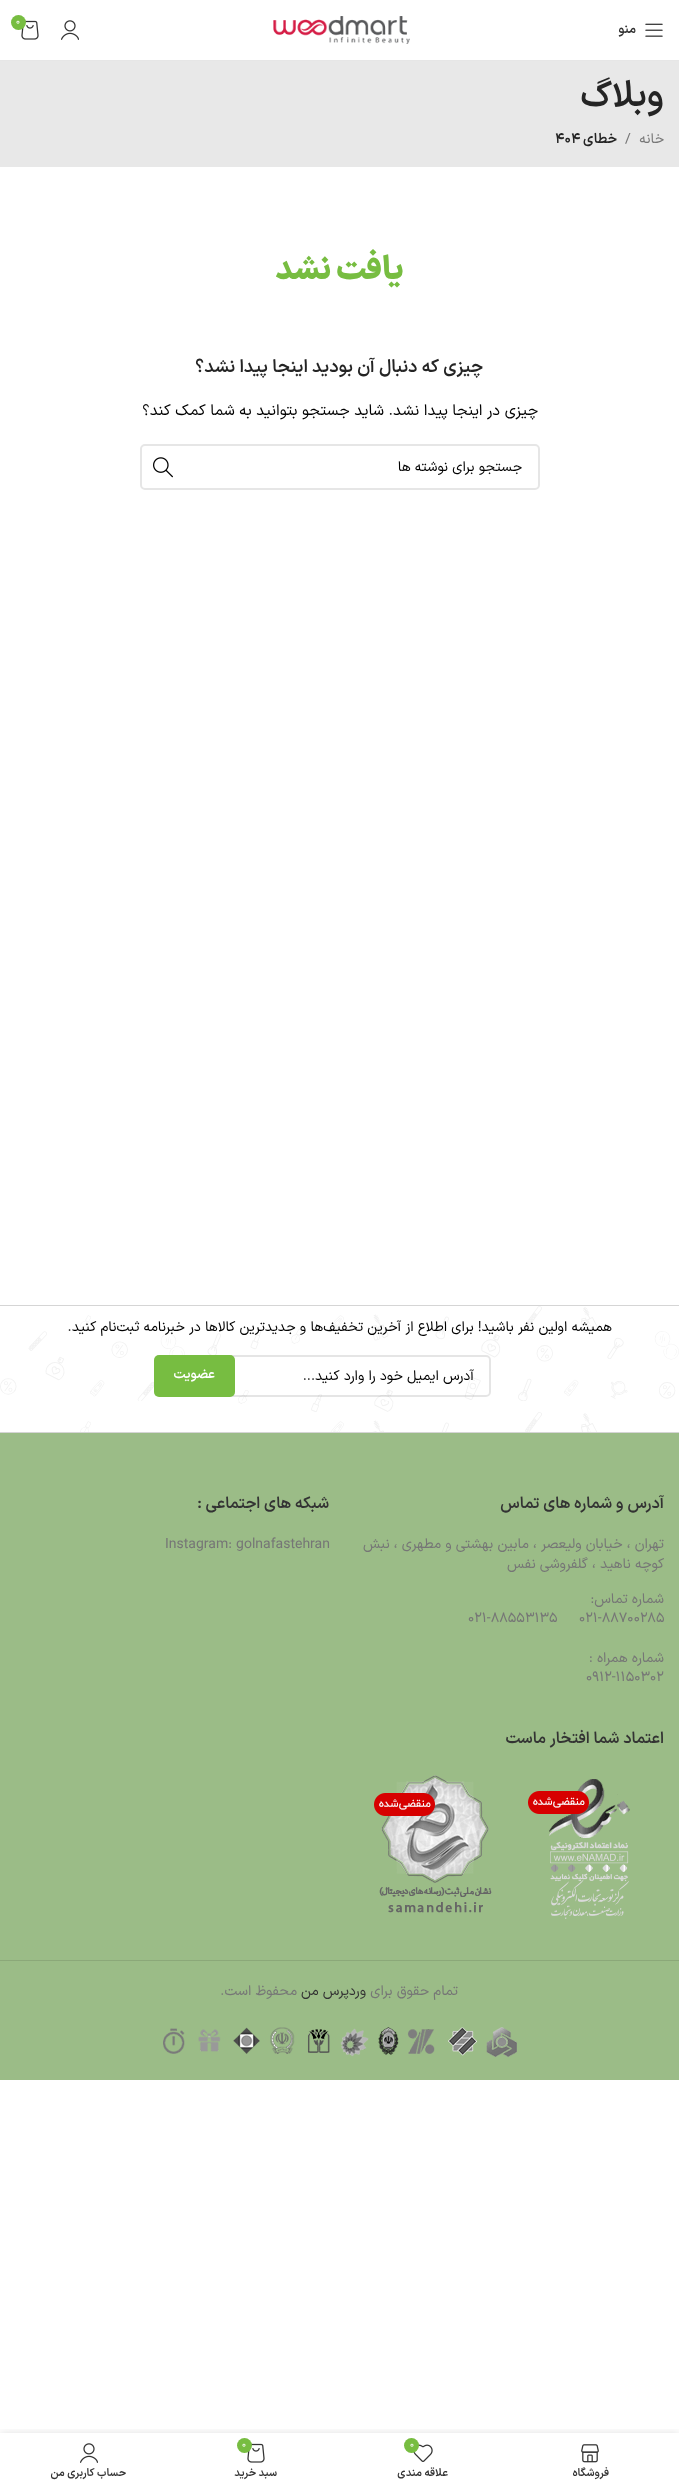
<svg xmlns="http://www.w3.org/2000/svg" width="679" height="2488">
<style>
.a{font:9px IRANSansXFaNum;fill:#fff}
.b{font:600 13px IRANSansXFaNum;direction:rtl;fill:#333}
.c{font:600 36px IRANSansXFaNum;direction:rtl;fill:#242424}
.d{font:14px IRANSansXFaNum;direction:rtl;fill:#767676}
.e{font:14px IRANSansXFaNum;fill:#767676}
.f{font:600 14px IRANSansXFaNum;direction:rtl;fill:#242424}
.g{font:600 14px IRANSansXFaNum;fill:#242424}
.h{font:900 32px IRANSansXFaNum;direction:rtl;fill:#77bd41}
.i{font:600 18px IRANSansXFaNum;direction:rtl;fill:#242424}
.j{font:15.4px IRANSansXFaNum;direction:rtl;fill:#000}
.k{font:14px IRANSansXFaNum;direction:rtl;fill:#000}
.l{font:600 13px IRANSansXFaNum;direction:rtl;fill:#fff}
.m{font:600 16px IRANSansXFaNum;direction:rtl;fill:#333}
.n{font:14px IRANSansXFaNum;direction:rtl;fill:#333}
.o{font:600 11px IRANSansXFaNum;direction:rtl;fill:#333}
</style>
<defs>
<clipPath id="clip1"><path d="M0 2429h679v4H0z"/></clipPath>
</defs>
<rect width="100%" height="100%" fill="#fff"/>
<path fill="#e6e6e6" d="M0 60h679v1H0z"/>
<image href="1.png" x="273" y="16" width="137" height="28"/>
<image href="2.png" x="61" y="20" width="18" height="20"/>
<image href="3.png" x="21" y="20" width="18" height="20"/>
<circle fill="#77bd41" cx="18.5" cy="22.5" r="7.5"/>
<image href="4.png" x="645" y="23" width="18" height="14"/>
<path fill="#e8e8e8" d="M0 61h679v106H0z"/>
<rect fill="none" stroke="#e6e6e6" stroke-width="2" x="141" y="445" width="398" height="44" rx="4"/>
<image href="5.png" x="153" y="457" width="20" height="21"/>
<image href="6.png" x="0" y="1306" width="679" height="126"/>
<path fill="#d5d5d5" d="M0 1305h679v1H0z"/>
<path fill="#d5d5d5" d="M0 1432h679v1H0z"/>
<rect fill="none" stroke="#0000001a" stroke-width="2" x="202" y="1356" width="288" height="40" rx="4"/>
<rect fill="#77bd41" x="154" y="1355" width="81" height="42" rx="5"/>
<path fill="#9bbc87" d="M0 1433h679v647H0z"/>
<image href="7.png" x="528" y="1779" width="102" height="140"/>
<image href="8.png" x="374" y="1775" width="118" height="138"/>
<path fill="#8ba879" d="M0 1960h679v1H0z"/>
<image href="9.png" x="163" y="2027" width="354" height="30"/>
<g clip-path="url(#clip1)">
<path fill="#0000001f" filter="blur(4.5px)" d="M0 2433h679v55H0z"/>
</g>
<image href="10.png" x="581" y="2444" width="18" height="19"/>
<image href="11.png" x="413" y="2444" width="20" height="18"/>
<circle fill="#77bd41" cx="411.5" cy="2445.5" r="7.5"/>
<image href="3.png" x="247" y="2443" width="18" height="20"/>
<circle fill="#77bd41" cx="244.5" cy="2445.5" r="7.5"/>
<image href="2.png" x="80" y="2443" width="18" height="20"/>
<text class="a" x="16" y="24">0</text>
<text class="b" x="636" y="33">منو</text>
<text class="c" x="664" y="106">وبلاگ</text>
<text class="d" x="664" y="143">خانه</text>
<text class="e" x="625" y="143">/</text>
<text class="f" x="617" y="143">خطای</text>
<text class="g" x="555" y="143">404</text>
<text class="h" x="404" y="279">یافت نشد</text>
<text class="i" x="483" y="372">چیزی که دنبال آن بودید اینجا پیدا نشد؟</text>
<text class="j" x="538" y="415">چیزی در اینجا پیدا نشد. شاید جستجو بتوانید به شما کمک کند؟</text>
<text class="k" x="522" y="471">جستجو برای نوشته ها</text>
<text class="k" x="612" y="1331">همیشه اولین نفر باشید! برای اطلاع از آخرین تخفیف‌ها و جدیدترین کالاها در خبرنامه ثبت‌نام کنید.</text>
<text class="k" x="474" y="1380">آدرس ایمیل خود را وارد کنید...</text>
<text class="l" x="215" y="1378">عضویت</text>
<text class="m" x="664" y="1508">آدرس و شماره های تماس</text>
<text class="d" x="664" y="1548">تهران ، خیابان ولیعصر ، مابین بهشتی و مطهری ، نبش</text>
<text class="d" x="664" y="1568">کوچه ناهید ، گلفروشی نفس</text>
<text class="d" x="664" y="1603">شماره تماس:</text>
<text class="e" x="579" y="1622">021-88700285</text>
<text class="e" x="468" y="1622">021-88553135</text>
<text class="d" x="664" y="1662">شماره همراه :</text>
<text class="e" x="586" y="1681">0912-1150302</text>
<text class="m" x="329" y="1508">شبکه های اجتماعی :</text>
<text class="e" x="165" y="1548">Instagram: golnafastehran</text>
<text class="m" x="664" y="1743">اعتماد شما افتخار ماست</text>
<text class="d" x="458" y="1995">تمام حقوق برای</text>
<text class="n" x="366" y="1995">وردپرس من</text>
<text class="d" x="297" y="1995">محفوظ است.</text>
<text class="o" x="609" y="2476">فروشگاه</text>
<text class="a" x="410" y="2447">0</text>
<text class="o" x="448" y="2476">علاقه مندی</text>
<text class="a" x="242" y="2447">0</text>
<text class="o" x="277" y="2476">سبد خرید</text>
<text class="o" x="126" y="2476">حساب کاربری من</text>
</svg>
